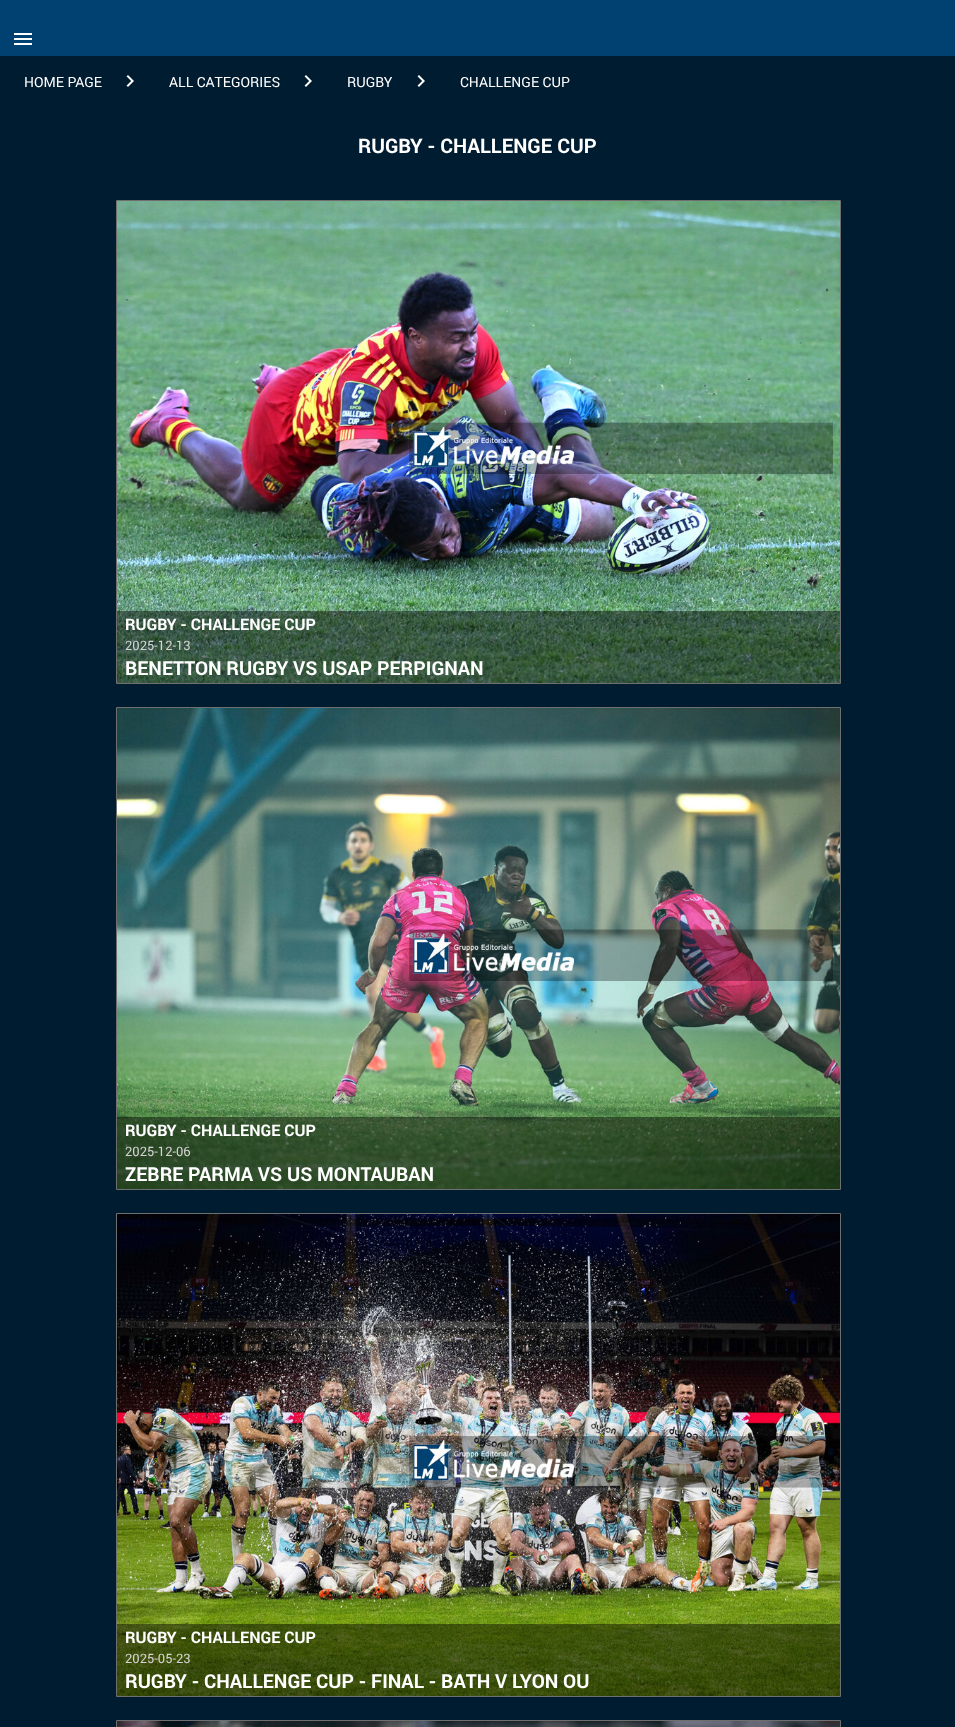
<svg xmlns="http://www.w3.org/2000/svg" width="955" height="1727">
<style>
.a{font:14px Roboto;fill:#fff}
.b{font:bold 20px Roboto;fill:#fff}
.c{font:bold 16px Roboto;fill:#fff}
.d{font:13px Roboto;fill:#d3d3d3}
.e{font:bold 19.2px Roboto;fill:#fff}
</style>
<rect width="100%" height="100%" fill="#001c31"/>
<path fill="#004171" d="M0 0h955v56H0z"/>
<image href="1.png" x="14" y="33" width="18" height="12"/>
<image href="2.png" x="126" y="75" width="8" height="12"/>
<image href="2.png" x="304" y="75" width="8" height="12"/>
<image href="2.png" x="417" y="75" width="8" height="12"/>
<path fill="none" stroke="#6f6f6f" d="M116.5 200.5h724v483H116.5z"/>
<image href="3.png" x="117" y="201" width="723" height="482"/>
<path fill="#00000073" d="M117 611h723v72H117z"/>
<path fill="none" stroke="#6f6f6f" d="M116.5 707.5h724v482H116.5z"/>
<image href="4.png" x="117" y="708" width="723" height="481"/>
<path fill="#00000073" d="M117 1117h723v72H117z"/>
<path fill="none" stroke="#6f6f6f" d="M116.5 1213.5h724v483H116.5z"/>
<image href="5.png" x="117" y="1214" width="723" height="482"/>
<path fill="#00000073" d="M117 1624h723v72H117z"/>
<path fill="none" stroke="#6f6f6f" d="M116.5 1720.5h724v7H116.5z"/>
<image href="6.png" x="117" y="1721" width="723" height="6"/>
<text class="a" x="24" y="87">HOME PAGE</text>
<text class="a" x="169" y="87">ALL CATEGORIES</text>
<text class="a" x="347" y="87">RUGBY</text>
<text class="a" x="460" y="87">CHALLENGE CUP</text>
<text class="b" x="358" y="153">RUGBY - CHALLENGE CUP</text>
<text class="c" x="125" y="630">RUGBY - CHALLENGE CUP</text>
<text class="d" x="125" y="650">2025-12-13</text>
<text class="e" x="125" y="675">BENETTON RUGBY VS USAP PERPIGNAN</text>
<text class="c" x="125" y="1136">RUGBY - CHALLENGE CUP</text>
<text class="d" x="125" y="1156">2025-12-06</text>
<text class="e" x="125" y="1181">ZEBRE PARMA VS US MONTAUBAN</text>
<text class="c" x="125" y="1643">RUGBY - CHALLENGE CUP</text>
<text class="d" x="125" y="1663">2025-05-23</text>
<text class="e" x="125" y="1688">RUGBY - CHALLENGE CUP - FINAL - BATH V LYON OU</text>
</svg>
